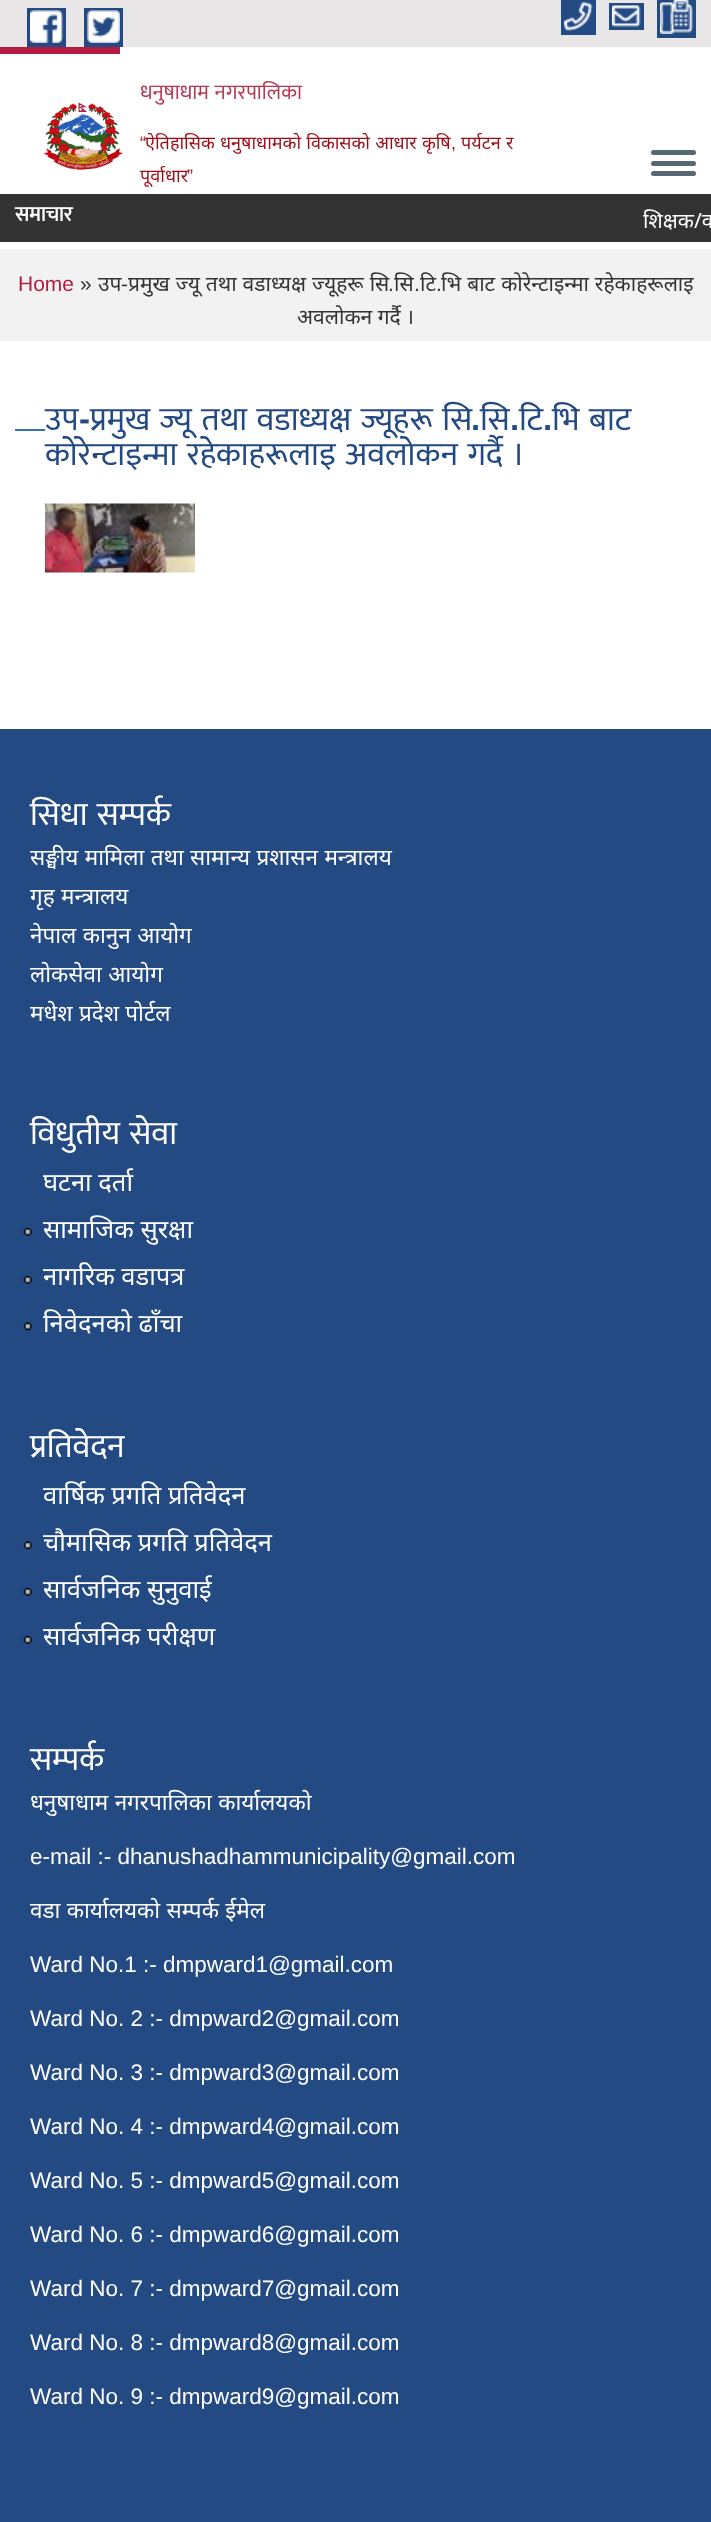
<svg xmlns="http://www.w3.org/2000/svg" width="711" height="2522">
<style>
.a{font:21px Mukta;fill:#b83955}
.b{font:18px Noto Sans;fill:#9e0c18}
.c{font:18px Liberation Sans;fill:#9e0c18}
.d{font:bold 21px Mukta;fill:#fff}
.e{font:21px Noto Sans;fill:#fff}
.f{font:21px Liberation Sans;fill:#b21c42}
.g{font:21px Liberation Sans;fill:#333}
.h{font:21px Noto Sans;fill:#333}
.i{font:33px Mukta;fill:#234a83}
.j{font:bold 33px Liberation Sans;fill:#234a83}
.k{font:33px Mukta;fill:#fff}
.l{font:22.5px Noto Sans;fill:#fff}
.m{font:25.5px Noto Sans;fill:#fff}
.n{font:22.5px Liberation Sans;fill:#fff}
</style>
<rect width="100%" height="100%" fill="#fff"/>
<path fill="#e8e6e6" d="M0 0h711v47H0z"/>
<path fill="#234a83" d="M27 8h39v39H27z"/>
<path fill="#234a83" d="M84 8h39v39H84z"/>
<image href="1.png" x="30" y="10" width="33" height="33"/>
<image href="2.png" x="87" y="10" width="33" height="33"/>
<path fill="#234a83" d="M561 0h35v35H561z"/>
<path fill="#234a83" d="M657 0h39v38H657z"/>
<image href="3.png" x="564" y="2" width="29" height="29"/>
<path fill="#234a83" d="M609 3h35v27H609z"/>
<image href="4.png" x="660" y="0" width="33" height="34"/>
<image href="5.png" x="612" y="5" width="29" height="22"/>
<path fill="#b21c42" d="M0 47h120v7H0z"/>
<image href="6.png" x="43" y="102" width="80" height="68"/>
<rect fill="#566973" x="651" y="150" width="45" height="5" rx="2.5"/>
<rect fill="#566973" x="651" y="161" width="45" height="5" rx="2.5"/>
<rect fill="#566973" x="651" y="171" width="45" height="5" rx="2.5"/>
<path fill="#333" d="M0 194h711v48H0z"/>
<path fill="#f2f2f2" d="M0 249h711v92H0z"/>
<path fill="#376fc2" d="M15 429h30v2H15z"/>
<image href="7.png" x="45" y="503" width="150" height="70"/>
<path fill="#234a83" d="M0 729h711v1793H0z"/>
<image href="8.png" x="23" y="1227" width="9" height="9"/>
<image href="8.png" x="23" y="1275" width="9" height="9"/>
<image href="9.png" x="23" y="1322" width="9" height="9"/>
<image href="9.png" x="23" y="1541" width="9" height="9"/>
<image href="8.png" x="23" y="1587" width="9" height="9"/>
<image href="8.png" x="23" y="1635" width="9" height="9"/>
<text class="a" x="140" y="99" word-spacing="1">धनुषाधाम नगरपालिका</text>
<text class="b" x="461" y="149" word-spacing="0.5">पर्यटन र</text>
<text class="c" x="140" y="149">“</text>
<text class="b" x="145" y="149" word-spacing="0.5">ऐतिहासिक धनुषाधामको विकासको आधार कृषि</text>
<text class="c" x="451" y="149">,</text>
<text class="b" x="140" y="182">पूर्वाधार</text>
<text class="c" x="187" y="182">”</text>
<text class="d" x="15" y="221">समाचार</text>
<text class="e" x="643" y="228">शिक्षक/क‍</text>
<text class="f" x="18" y="291">Home</text>
<text class="g" x="80" y="291">»</text>
<text class="h" x="98" y="291">उप</text>
<text class="g" x="121" y="291">-</text>
<text class="h" x="128" y="291" word-spacing="0.5">प्रमुख ज्यू तथा वडाध्यक्ष ज्यूहरू सि</text>
<text class="h" x="394" y="291">सि</text>
<text class="h" x="420" y="291">टि</text>
<text class="h" x="441" y="291" word-spacing="0.5">भि बाट काेरेन्टाइन्मा रहेकाहरूलाइ</text>
<text class="g" x="388" y="291">.</text>
<text class="g" x="414" y="291">.</text>
<text class="g" x="436" y="291">.</text>
<text class="h" x="297" y="324">अवलोकन गर्दै ।</text>
<text class="i" x="45" y="430">उप</text>
<text class="j" x="79" y="430">-</text>
<text class="i" x="90" y="430" word-spacing="2">प्रमुख ज्यू तथा वडाध्यक्ष ज्यूहरू सि</text>
<text class="i" x="480" y="430">सि</text>
<text class="i" x="519" y="430">टि</text>
<text class="i" x="552" y="430" word-spacing="2">भि बाट</text>
<text class="j" x="471" y="430">.</text>
<text class="j" x="510" y="430">.</text>
<text class="j" x="543" y="430">.</text>
<text class="i" x="45" y="465" word-spacing="2">काेरेन्टाइन्मा रहेकाहरूलाइ अवलोकन गर्दै ।</text>
<text class="k" x="30" y="825" word-spacing="2">सिधा सम्पर्क</text>
<text class="l" x="30" y="865" word-spacing="0.5">सङ्घीय मामिला तथा सामान्य प्रशासन मन्त्रालय</text>
<text class="l" x="30" y="904" word-spacing="0.5">गृह मन्त्रालय</text>
<text class="l" x="30" y="943" word-spacing="0.5">नेपाल कानुन आयोग</text>
<text class="l" x="30" y="982" word-spacing="0.5">लोकसेवा आयोग</text>
<text class="l" x="30" y="1021" word-spacing="0.5">मधेश प्रदेश पोर्टल</text>
<text class="k" x="30" y="1144" word-spacing="2">विधुतीय सेवा</text>
<text class="m" x="43" y="1191">घटना दर्ता</text>
<text class="m" x="43" y="1238">सामाजिक सुरक्षा</text>
<text class="m" x="43" y="1285">नागरिक वडापत्र</text>
<text class="m" x="43" y="1332">निवेदनको ढाँचा</text>
<text class="k" x="30" y="1457">प्रतिवेदन</text>
<text class="m" x="43" y="1504">वार्षिक प्रगति प्रतिवेदन</text>
<text class="m" x="43" y="1551">चौमासिक प्रगति प्रतिवेदन</text>
<text class="m" x="43" y="1598">सार्वजनिक सुनुवाई</text>
<text class="m" x="43" y="1645">सार्वजनिक परीक्षण</text>
<text class="k" x="30" y="1770">सम्पर्क</text>
<text class="l" x="30" y="1810" word-spacing="0.5">धनुषाधाम नगरपालिका कार्यालयको</text>
<text class="n" x="30" y="1864">e-mail :- dhanushadhammunicipality@gmail.com</text>
<text class="l" x="30" y="1918" word-spacing="0.5">वडा कार्यालयको सम्पर्क ईमेल</text>
<text class="n" x="30" y="1972">Ward No.1 :- dmpward1@gmail.com</text>
<text class="n" x="30" y="2026">Ward No. 2 :- dmpward2@gmail.com</text>
<text class="n" x="30" y="2080">Ward No. 3 :- dmpward3@gmail.com</text>
<text class="n" x="30" y="2134">Ward No. 4 :- dmpward4@gmail.com</text>
<text class="n" x="30" y="2188">Ward No. 5 :- dmpward5@gmail.com</text>
<text class="n" x="30" y="2242">Ward No. 6 :- dmpward6@gmail.com</text>
<text class="n" x="30" y="2296">Ward No. 7 :- dmpward7@gmail.com</text>
<text class="n" x="30" y="2350">Ward No. 8 :- dmpward8@gmail.com</text>
<text class="n" x="30" y="2404">Ward No. 9 :- dmpward9@gmail.com</text>
</svg>
